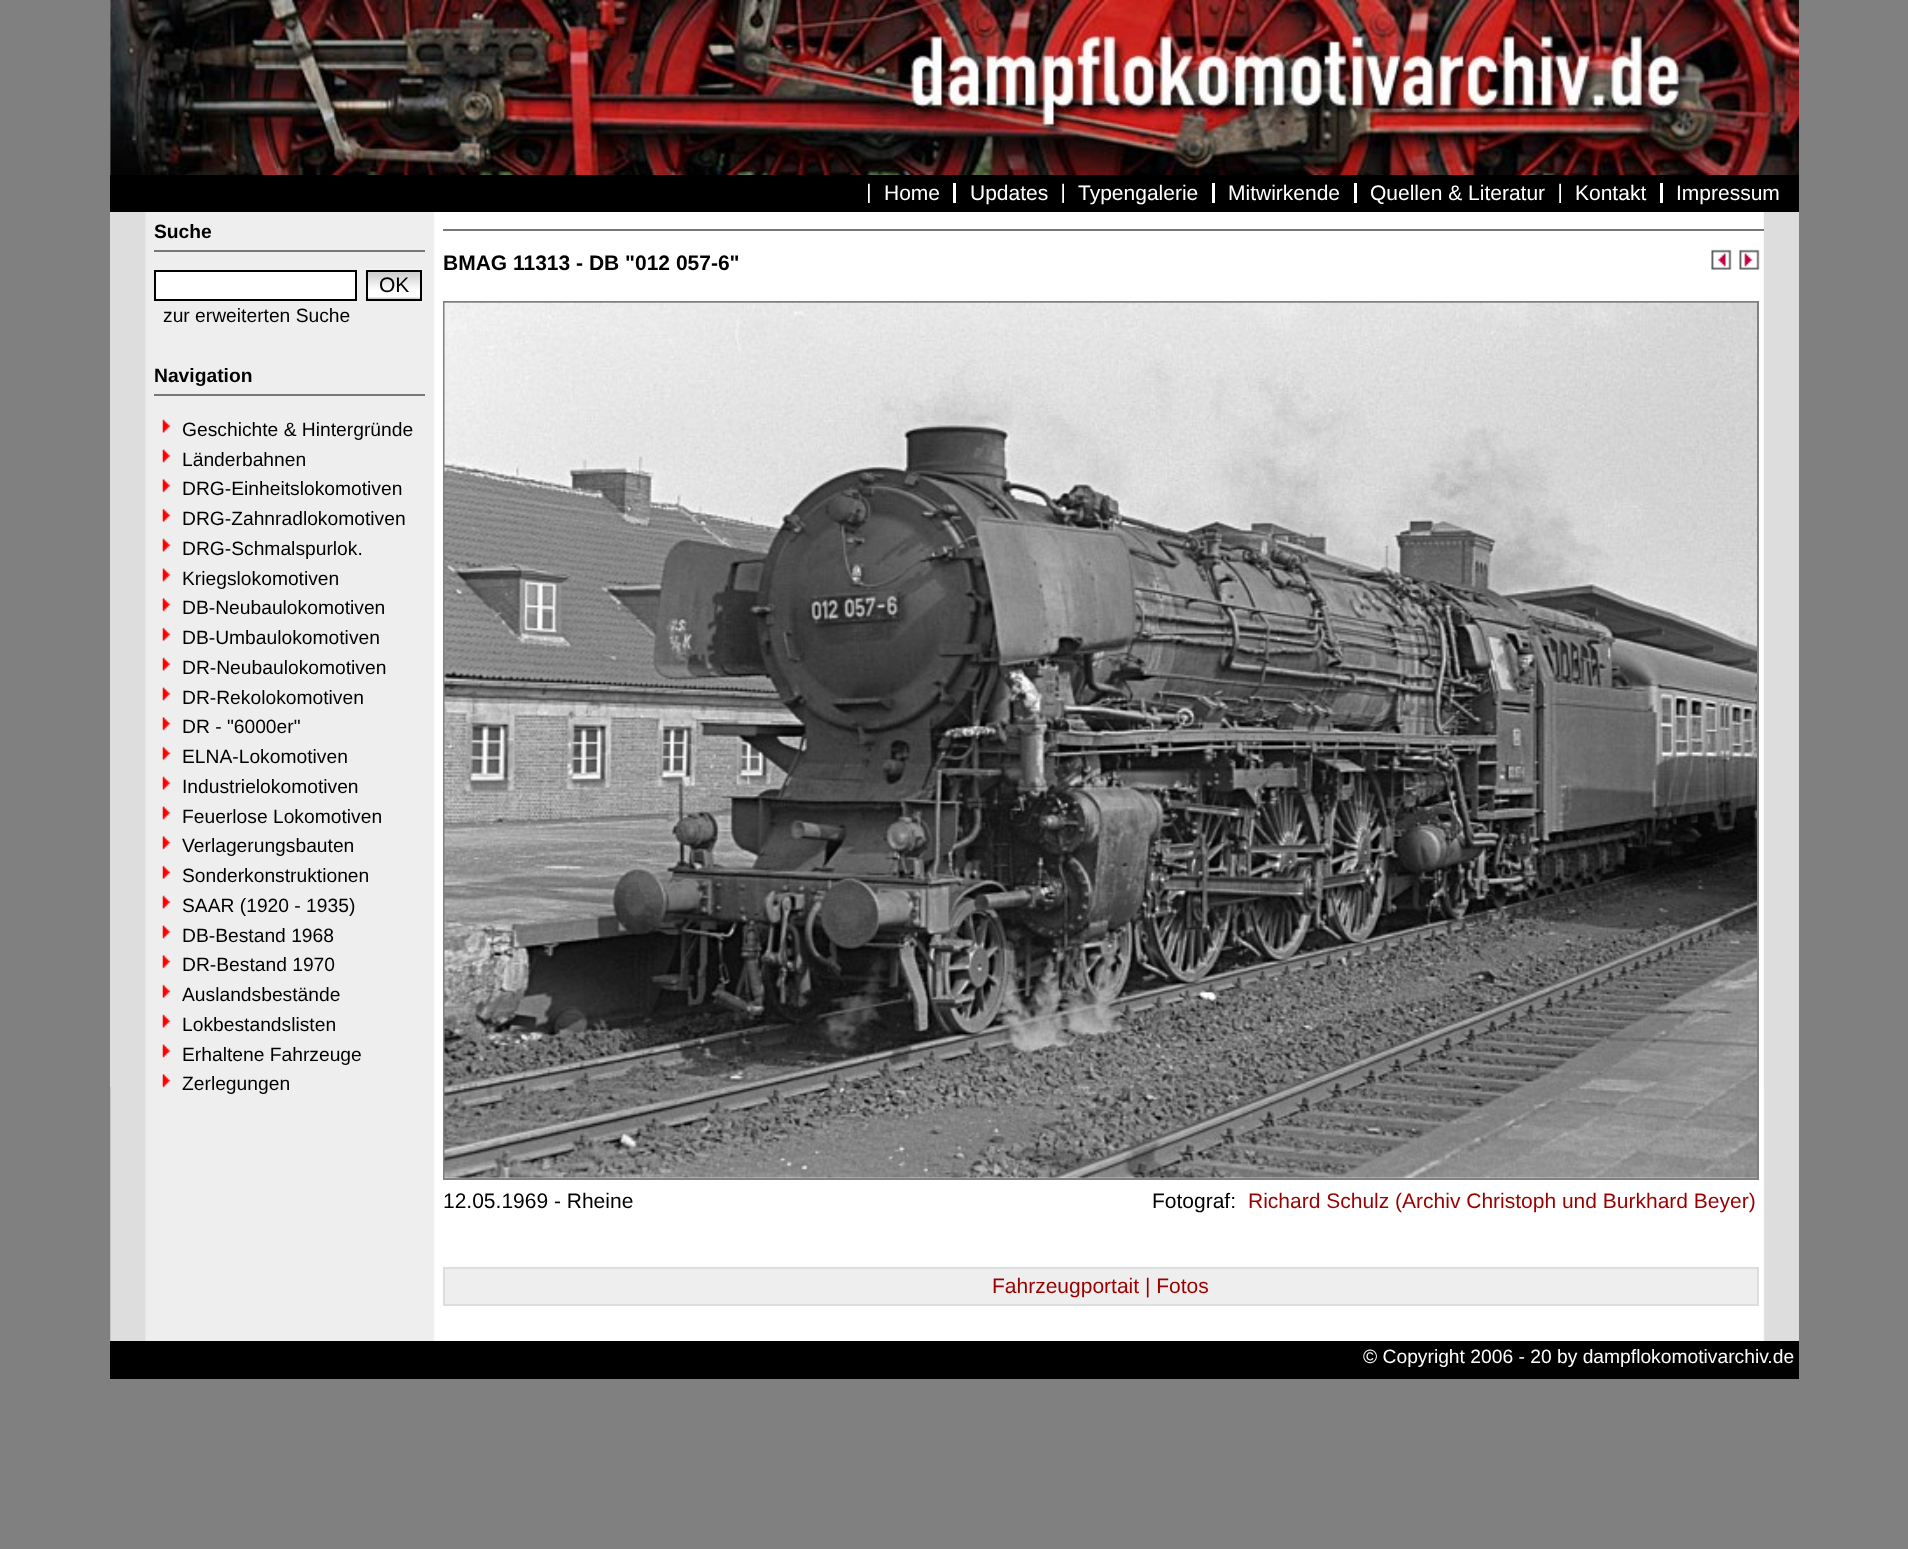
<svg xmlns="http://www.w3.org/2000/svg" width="1908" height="1549">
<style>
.a{font:21px Liberation Sans;fill:#fff}
.b{font:bold 19.25px Liberation Sans;fill:#000}
.c{font:21px Liberation Sans;fill:#000}
.d{font:19.25px Liberation Sans;fill:#000}
.e{font:bold 21px Liberation Sans;fill:#000}
.f{font:21px Liberation Sans;fill:#900}
.g{font:19.25px Liberation Sans;fill:#fff}
</style>
<rect width="100%" height="100%" fill="#808080"/>
<image href="1.png" x="110" y="0" width="1689" height="1341"/>
<image href="2.png" x="110" y="0" width="1689" height="175"/>
<path fill="#000" d="M110 175h1689v37H110z"/>
<image href="3.png" x="868" y="183" width="2" height="20"/>
<path fill="#fff" d="M953 183h3v20H953z"/>
<image href="4.png" x="1062" y="183" width="2" height="20"/>
<path fill="#fff" d="M1212 183h3v20H1212z"/>
<path fill="#fff" d="M1354 183h3v20H1354z"/>
<image href="4.png" x="1559" y="183" width="2" height="20"/>
<path fill="#fff" d="M1660 183h3v20H1660z"/>
<path fill="#ddd" d="M110 212h1v875H110z"/>
<path fill="#777" d="M154 250h271v2H154z"/>
<path fill="#fff" stroke="#000" stroke-width="2" d="M155 271h201v29H155z"/>
<image href="5.png" x="365" y="269" width="57" height="32"/>
<path fill="none" stroke="#000" stroke-width="2" d="M367 271h54v29H367z"/>
<path fill="#777" d="M154 394h271v2H154z"/>
<image href="6.png" x="162" y="419" width="9" height="14"/>
<image href="7.png" x="162" y="449" width="9" height="14"/>
<image href="8.png" x="162" y="479" width="9" height="14"/>
<image href="9.png" x="162" y="508" width="9" height="14"/>
<image href="6.png" x="162" y="538" width="9" height="14"/>
<image href="7.png" x="162" y="568" width="9" height="14"/>
<image href="8.png" x="162" y="598" width="9" height="14"/>
<image href="9.png" x="162" y="627" width="9" height="14"/>
<image href="6.png" x="162" y="657" width="9" height="14"/>
<image href="7.png" x="162" y="687" width="9" height="14"/>
<image href="8.png" x="162" y="717" width="9" height="14"/>
<image href="9.png" x="162" y="746" width="9" height="14"/>
<image href="6.png" x="162" y="776" width="9" height="14"/>
<image href="7.png" x="162" y="806" width="9" height="14"/>
<image href="8.png" x="162" y="836" width="9" height="14"/>
<image href="9.png" x="162" y="865" width="9" height="14"/>
<image href="6.png" x="162" y="895" width="9" height="14"/>
<image href="7.png" x="162" y="925" width="9" height="14"/>
<image href="8.png" x="162" y="955" width="9" height="14"/>
<image href="9.png" x="162" y="984" width="9" height="14"/>
<image href="6.png" x="162" y="1014" width="9" height="14"/>
<image href="7.png" x="162" y="1044" width="9" height="14"/>
<image href="8.png" x="162" y="1074" width="9" height="14"/>
<path fill="#777" d="M443 229h1321v2H443z"/>
<image href="10.png" x="1711" y="249" width="21" height="21"/>
<image href="11.png" x="1739" y="249" width="21" height="21"/>
<path fill="none" stroke="#808080" stroke-width="2" d="M444 302h1314v877H444z"/>
<image href="12.png" x="444" y="302" width="1313" height="876"/>
<path fill="#eee" stroke="#ddd" stroke-width="2" d="M444 1268h1314v37H444z"/>
<path fill="#ddd" d="M1764 212h1v875H1764z"/>
<path fill="#000" d="M110 1341h1689v38H110z"/>
<text class="a" x="884" y="200">Home</text>
<text class="a" x="970" y="200">Updates</text>
<text class="a" x="1078" y="200">Typengalerie</text>
<text class="a" x="1228" y="200">Mitwirkende</text>
<text class="a" x="1370" y="200">Quellen &amp; Literatur</text>
<text class="a" x="1575" y="200">Kontakt</text>
<text class="a" x="1676" y="200">Impressum</text>
<text class="b" x="154" y="238">Suche</text>
<text class="c" x="379" y="292">OK</text>
<text class="d" x="163" y="322">zur erweiterten Suche</text>
<text class="b" x="154" y="382">Navigation</text>
<text class="d" x="182" y="436">Geschichte &amp; Hintergründe</text>
<text class="d" x="182" y="466">Länderbahnen</text>
<text class="d" x="182" y="495">DRG-Einheitslokomotiven</text>
<text class="d" x="182" y="525">DRG-Zahnradlokomotiven</text>
<text class="d" x="182" y="555">DRG-Schmalspurlok.</text>
<text class="d" x="182" y="585">Kriegslokomotiven</text>
<text class="d" x="182" y="614">DB-Neubaulokomotiven</text>
<text class="d" x="182" y="644">DB-Umbaulokomotiven</text>
<text class="d" x="182" y="674">DR-Neubaulokomotiven</text>
<text class="d" x="182" y="704">DR-Rekolokomotiven</text>
<text class="d" x="182" y="733">DR - "6000er"</text>
<text class="d" x="182" y="763">ELNA-Lokomotiven</text>
<text class="d" x="182" y="793">Industrielokomotiven</text>
<text class="d" x="182" y="823">Feuerlose Lokomotiven</text>
<text class="d" x="182" y="852">Verlagerungsbauten</text>
<text class="d" x="182" y="882">Sonderkonstruktionen</text>
<text class="d" x="182" y="912">SAAR (1920 - 1935)</text>
<text class="d" x="182" y="942">DB-Bestand 1968</text>
<text class="d" x="182" y="971">DR-Bestand 1970</text>
<text class="d" x="182" y="1001">Auslandsbestände</text>
<text class="d" x="182" y="1031">Lokbestandslisten</text>
<text class="d" x="182" y="1061">Erhaltene Fahrzeuge</text>
<text class="d" x="182" y="1090">Zerlegungen</text>
<text class="e" x="443" y="270">BMAG 11313 - DB "012 057-6"</text>
<text class="c" x="443" y="1208">12.05.1969 - Rheine</text>
<text class="c" x="1152" y="1208">Fotograf:</text>
<text class="f" x="1248" y="1208">Richard Schulz (Archiv Christoph und Burkhard Beyer)</text>
<text class="f" x="992" y="1293">Fahrzeugportait | Fotos</text>
<text class="g" x="1363" y="1363">© Copyright 2006 - 20 by dampflokomotivarchiv.de</text>
</svg>
